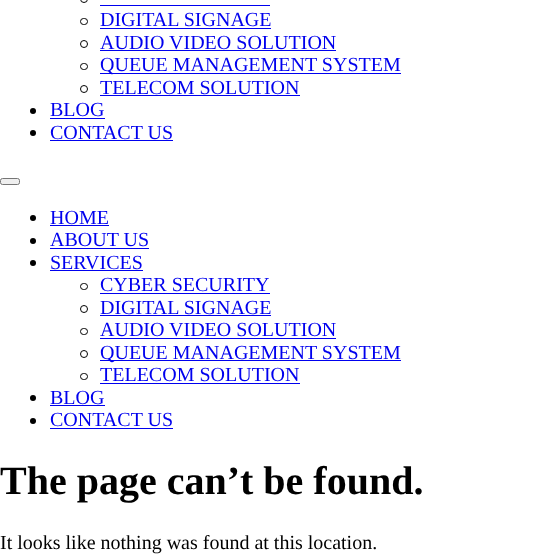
<svg xmlns="http://www.w3.org/2000/svg" width="536" height="556">
<style>
.a{font:20px Liberation Serif;fill:#00e}
.b{font:bold 40px Liberation Serif;fill:#000}
.c{font:20px Liberation Serif;fill:#000}
</style>
<rect width="100%" height="100%" fill="#fff"/>
<circle fill="none" stroke="#000" cx="84" cy="-1" r="3.5"/>
<path fill="#00e" d="M100 5h170v1H100z"/>
<rect fill="none" stroke="#000" x="80.5" y="18.5" width="7" height="6" rx="3"/>
<path fill="#00e" d="M100 28h171v1H100z"/>
<circle fill="none" stroke="#000" cx="84" cy="44" r="3.5"/>
<path fill="#00e" d="M100 50h236v1H100z"/>
<rect fill="none" stroke="#000" x="80.5" y="63.5" width="7" height="6" rx="3"/>
<path fill="#00e" d="M100 73h301v1H100z"/>
<circle fill="none" stroke="#000" cx="84" cy="89" r="3.5"/>
<path fill="#00e" d="M100 95h200v1H100z"/>
<circle fill="#000" cx="33" cy="111" r="3"/>
<path fill="#00e" d="M50 118h55v1H50z"/>
<circle fill="#000" cx="33" cy="133" r="3"/>
<path fill="#00e" d="M50 140h123v1H50z"/>
<rect fill="#efefef" stroke="#767676" x="0.5" y="178.5" width="19" height="6" rx="2"/>
<circle fill="#000" cx="33" cy="218" r="3"/>
<path fill="#00e" d="M50 225h59v1H50z"/>
<circle fill="#000" cx="33" cy="241" r="3"/>
<path fill="#00e" d="M50 248h99v1H50z"/>
<circle fill="#000" cx="33" cy="263" r="3"/>
<path fill="#00e" d="M50 270h93v1H50z"/>
<rect fill="none" stroke="#000" x="80.5" y="283.5" width="7" height="6" rx="3"/>
<path fill="#00e" d="M100 293h170v1H100z"/>
<circle fill="none" stroke="#000" cx="84" cy="309" r="3.5"/>
<path fill="#00e" d="M100 315h171v1H100z"/>
<rect fill="none" stroke="#000" x="80.5" y="328.5" width="7" height="6" rx="3"/>
<path fill="#00e" d="M100 338h236v1H100z"/>
<circle fill="none" stroke="#000" cx="84" cy="354" r="3.5"/>
<path fill="#00e" d="M100 360h301v1H100z"/>
<rect fill="none" stroke="#000" x="80.5" y="373.5" width="7" height="6" rx="3"/>
<path fill="#00e" d="M100 383h200v1H100z"/>
<circle fill="#000" cx="33" cy="398" r="3"/>
<path fill="#00e" d="M50 405h55v1H50z"/>
<circle fill="#000" cx="33" cy="421" r="3"/>
<path fill="#00e" d="M50 428h123v1H50z"/>
<text class="a" x="100" y="26">DIGITAL SIGNAGE</text>
<text class="a" x="100" y="49">AUDIO VIDEO SOLUTION</text>
<text class="a" x="100" y="71">QUEUE MANAGEMENT SYSTEM</text>
<text class="a" x="100" y="94">TELECOM SOLUTION</text>
<text class="a" x="50" y="116">BLOG</text>
<text class="a" x="50" y="139">CONTACT US</text>
<text class="a" x="50" y="224">HOME</text>
<text class="a" x="50" y="246">ABOUT US</text>
<text class="a" x="50" y="269">SERVICES</text>
<text class="a" x="100" y="291">CYBER SECURITY</text>
<text class="a" x="100" y="314">DIGITAL SIGNAGE</text>
<text class="a" x="100" y="336">AUDIO VIDEO SOLUTION</text>
<text class="a" x="100" y="359">QUEUE MANAGEMENT SYSTEM</text>
<text class="a" x="100" y="381">TELECOM SOLUTION</text>
<text class="a" x="50" y="404">BLOG</text>
<text class="a" x="50" y="426">CONTACT US</text>
<text class="b" x="0" y="494">The page can’t be found.</text>
<text class="c" x="0" y="549">It looks like nothing was found at this location.</text>
</svg>
